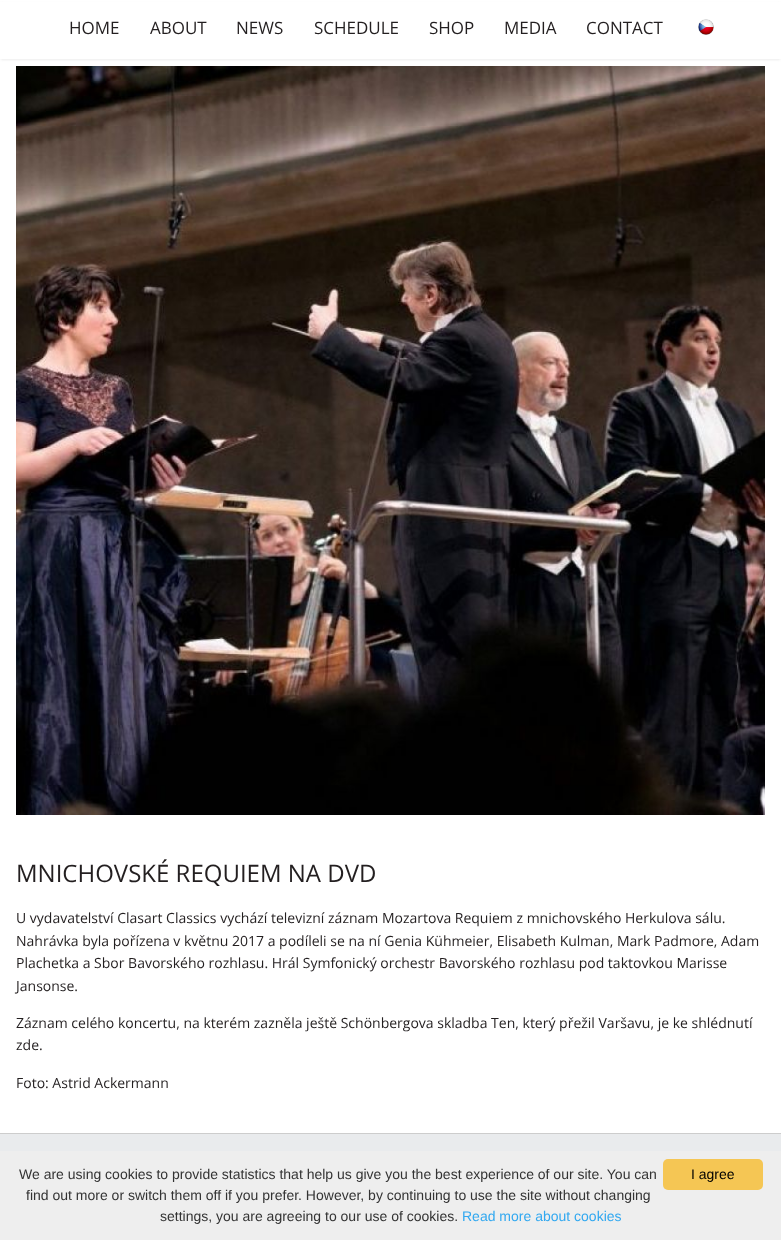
<svg xmlns="http://www.w3.org/2000/svg" width="781" height="1240">
<style>
.a{font:17px Open Sans;fill:#231f20}
.b{font:24px Open Sans;fill:#231f20}
.c{font:14px Open Sans;fill:#231f20}
.d{font:14px Liberation Sans;fill:#333}
.e{font:14px Liberation Sans;fill:#31a8f0}
.f{font:14px Liberation Sans;fill:#000}
</style>
<rect width="100%" height="100%" fill="#fff"/>
<path fill="#4242421a" filter="blur(1px)" d="M1 3h779v57H1z"/>
<path fill="#fff" d="M0 2h781v57H0z"/>
<image href="1.png" x="698" y="19" width="16" height="16"/>
<image href="2.png" x="16" y="66" width="749" height="749"/>
<path fill="#e9ebed" d="M0 1134h781v17H0z"/>
<path fill="#cdcdcd" d="M0 1133h781v1H0z"/>
<path fill="#eee" d="M0 1151h781v89H0z"/>
<rect fill="#f5c654" x="663" y="1159" width="100" height="31" rx="5"/>
<text class="a" x="69" y="34">HOME</text>
<text class="a" x="150" y="34">ABOUT</text>
<text class="a" x="236" y="34">NEWS</text>
<text class="a" x="314" y="34">SCHEDULE</text>
<text class="a" x="429" y="34">SHOP</text>
<text class="a" x="504" y="34">MEDIA</text>
<text class="a" x="586" y="34">CONTACT</text>
<text class="b" x="16" y="882">MNICHOVSKÉ REQUIEM NA DVD</text>
<text class="c" x="16" y="923">U vydavatelství Clasart Classics vychází televizní záznam Mozartova Requiem z mnichovského Herkulova sálu.</text>
<text class="c" x="16" y="946">Nahrávka byla pořízena v květnu 2017 a podíleli se na ní Genia Kühmeier, Elisabeth Kulman, Mark Padmore, Adam</text>
<text class="c" x="16" y="968">Plachetka a Sbor Bavorského rozhlasu. Hrál Symfonický orchestr Bavorského rozhlasu pod taktovkou Marisse</text>
<text class="c" x="16" y="991">Jansonse.</text>
<text class="c" x="16" y="1028">Záznam celého koncertu, na kterém zazněla ještě Schönbergova skladba Ten, který přežil Varšavu, je ke shlédnutí</text>
<text class="c" x="16" y="1050">zde.</text>
<text class="c" x="16" y="1088">Foto: Astrid Ackermann</text>
<text class="d" x="19" y="1179">We are using cookies to provide statistics that help us give you the best experience of our site. You can</text>
<text class="d" x="26" y="1200">find out more or switch them off if you prefer. However, by continuing to use the site without changing</text>
<text class="d" x="160" y="1221">settings, you are agreeing to our use of cookies.</text>
<text class="e" x="462" y="1221">Read more about cookies</text>
<text class="f" x="691" y="1179">I agree</text>
</svg>
